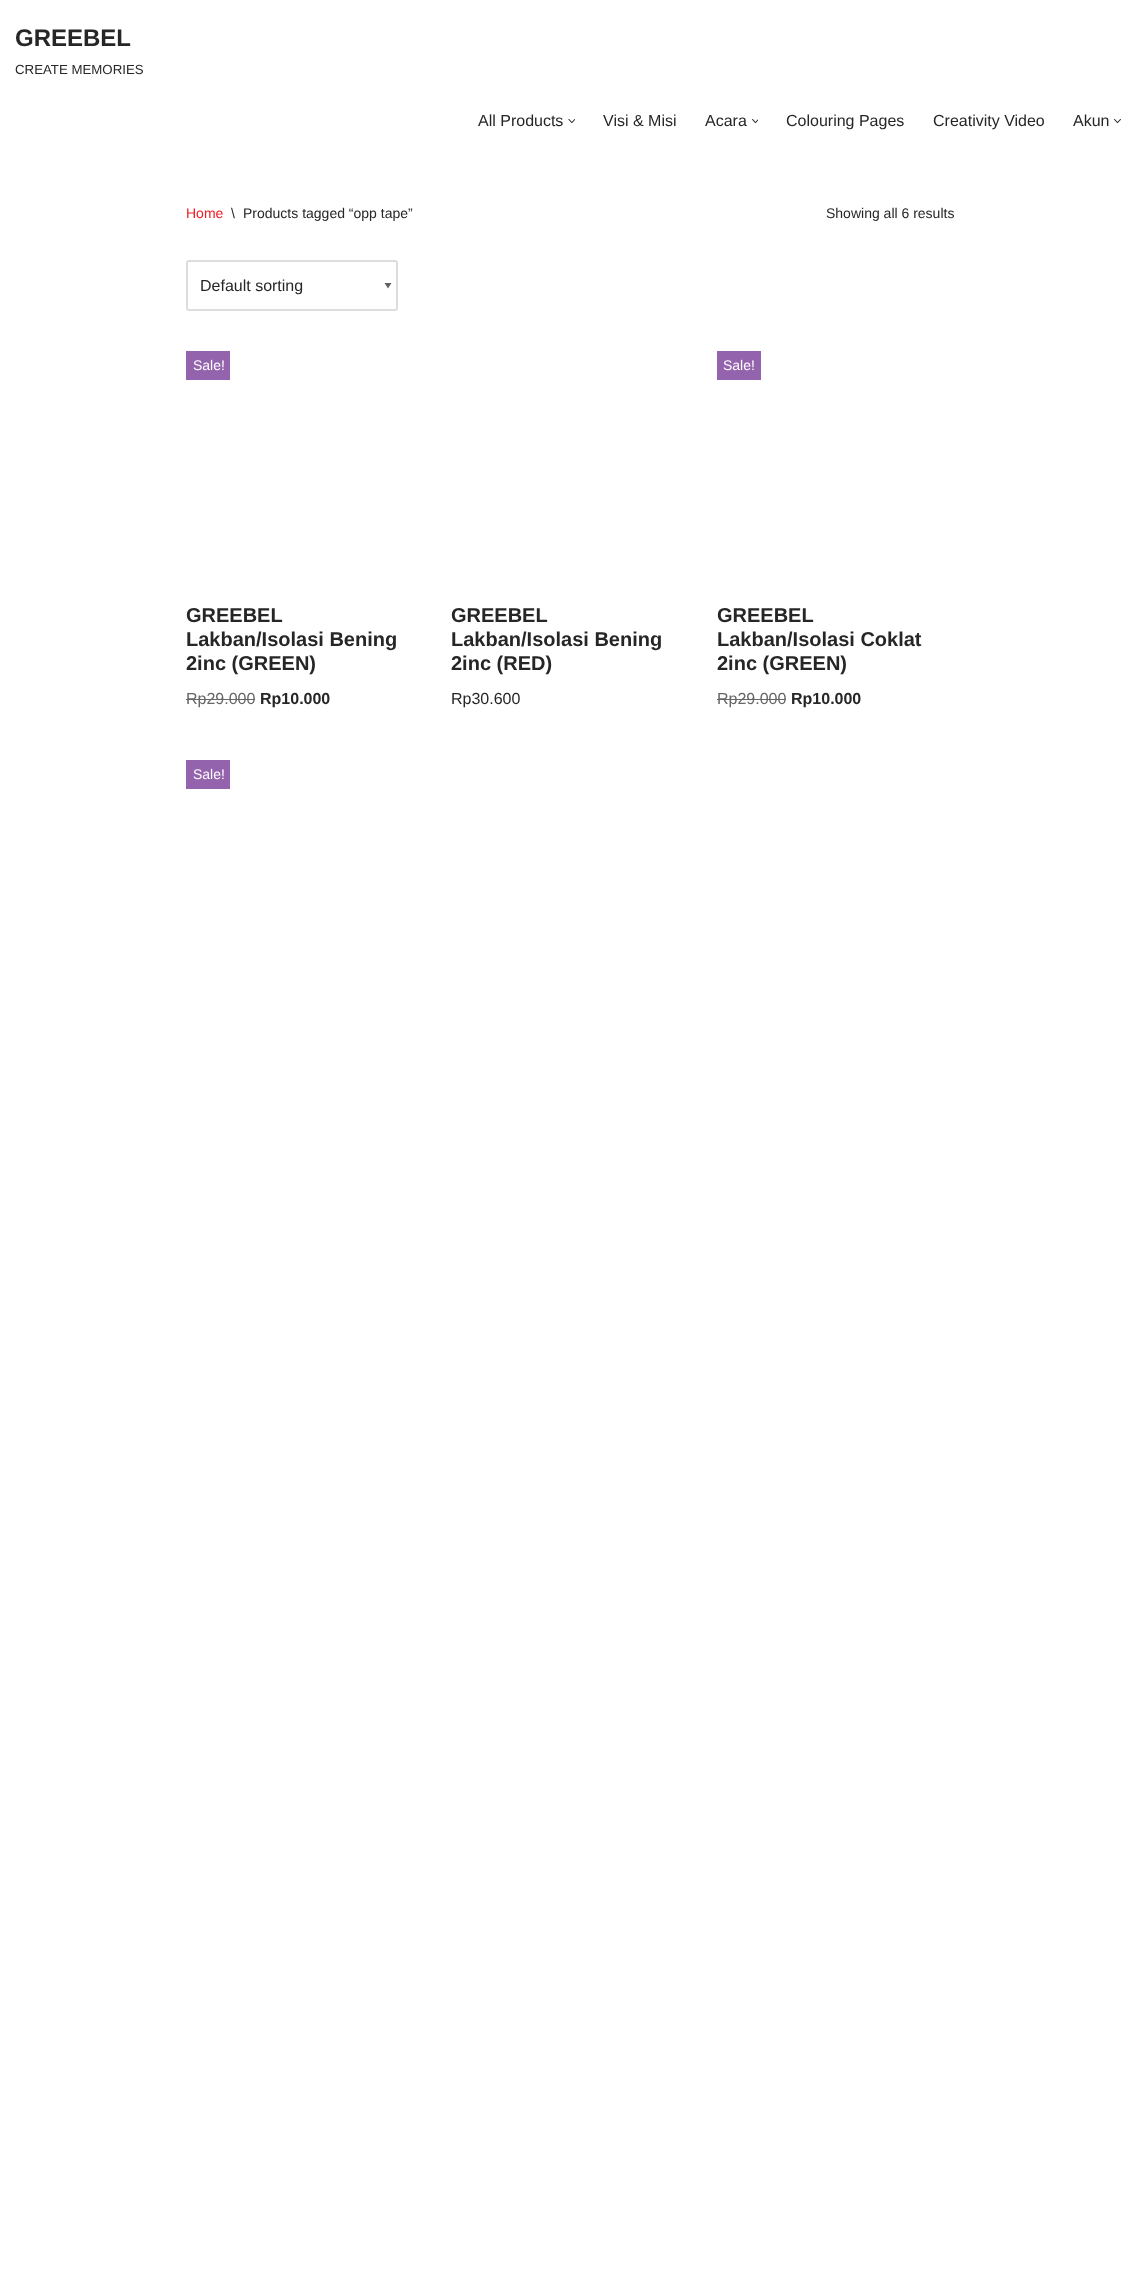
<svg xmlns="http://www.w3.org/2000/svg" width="1140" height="2281">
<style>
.a{font:bold 24px Liberation Sans;fill:#272626}
.b{font:13.25px Liberation Sans;fill:#272626}
.c{font:16px Liberation Sans;fill:#272626}
.d{font:14px Liberation Sans;fill:#ed1c24}
.e{font:14px Liberation Sans;fill:#272626}
.f{font:14px Liberation Sans;fill:#fff}
.g{font:bold 20px Liberation Sans;fill:#272626}
.h{font:16px Liberation Sans;fill:#686767}
.i{font:bold 16px Liberation Sans;fill:#272626}
</style>
<rect width="100%" height="100%" fill="#fff"/>
<image href="1.png" x="568" y="119" width="7" height="5"/>
<image href="2.png" x="752" y="119" width="6" height="5"/>
<image href="3.png" x="1114" y="119" width="7" height="5"/>
<path fill="#626262" d="M391.5 283l-3.5 5.5l-3.5-5.5z"/>
<rect fill="none" stroke="#ddd" stroke-width="2" x="187" y="261" width="210" height="49" rx="2"/>
<path fill="#9463ae" d="M186 351h44v29H186z"/>
<path fill="#686767" d="M186 699h69v1H186z"/>
<path fill="#9463ae" d="M717 351h44v29H717z"/>
<path fill="#686767" d="M717 699h69v1H717z"/>
<path fill="#9463ae" d="M186 760h44v29H186z"/>
<text class="a" x="15" y="46">GREEBEL</text>
<text class="b" x="15" y="74">CREATE MEMORIES</text>
<text class="c" x="478" y="126">All Products</text>
<text class="c" x="603" y="126">Visi &amp; Misi</text>
<text class="c" x="705" y="126">Acara</text>
<text class="c" x="786" y="126">Colouring Pages</text>
<text class="c" x="933" y="126">Creativity Video</text>
<text class="c" x="1073" y="126">Akun</text>
<text class="d" x="186" y="218">Home</text>
<text class="e" x="231" y="218">\</text>
<text class="e" x="243" y="218">Products tagged “opp tape”</text>
<text class="e" x="826" y="218">Showing all 6 results</text>
<text class="c" x="200" y="291">Default sorting</text>
<text class="f" x="193" y="370">Sale!</text>
<text class="g" x="186" y="622">GREEBEL</text>
<text class="g" x="186" y="646">Lakban/Isolasi Bening</text>
<text class="g" x="186" y="670">2inc (GREEN)</text>
<text class="h" x="186" y="704">Rp29.000</text>
<text class="i" x="260" y="704">Rp10.000</text>
<text class="g" x="451" y="622">GREEBEL</text>
<text class="g" x="451" y="646">Lakban/Isolasi Bening</text>
<text class="g" x="451" y="670">2inc (RED)</text>
<text class="c" x="451" y="704">Rp30.600</text>
<text class="f" x="723" y="370">Sale!</text>
<text class="g" x="717" y="622">GREEBEL</text>
<text class="g" x="717" y="646">Lakban/Isolasi Coklat</text>
<text class="g" x="717" y="670">2inc (GREEN)</text>
<text class="h" x="717" y="704">Rp29.000</text>
<text class="i" x="791" y="704">Rp10.000</text>
<text class="f" x="193" y="779">Sale!</text>
</svg>
